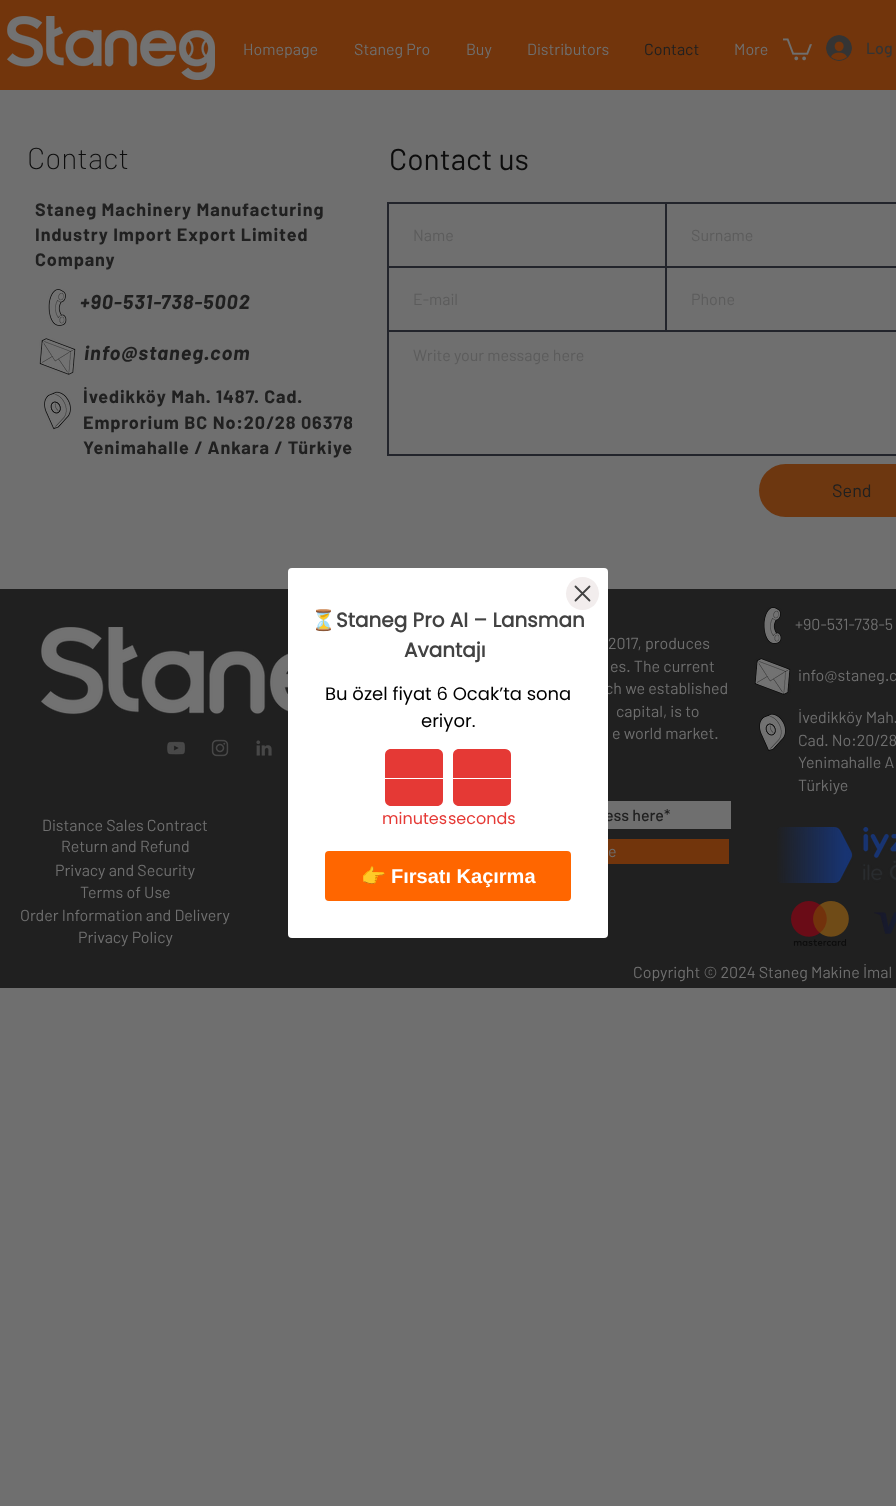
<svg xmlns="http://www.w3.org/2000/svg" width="896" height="1506">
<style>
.a{font:16px Barlow;fill:#6f6f6f}
.b{font:16px Barlow;fill:#202020}
.c{font:500 16px Barlow;fill:#343434}
.d{font:200 30px Barlow;fill:#0c0c0c}
.e{font:30px Barlow;fill:#0c0c0c}
.f{font:16px Barlow;fill:#5c5c5c}
.g{font:18px Barlow;fill:#202020}
.h{font:bold 18px Barlow;letter-spacing:0.9px;fill:#202020}
.i{font:italic bold 20px Barlow;letter-spacing:1px;fill:#202020}
.j{font:500 16px Barlow;fill:#202020}
.k{font:bold 20px Noto Color Emoji;fill:#424242}
.l{font:bold 20px Poppins;fill:#424242}
.m{font:18px Poppins;fill:#000}
.n{font:16px Poppins;fill:#e53935}
.o{font:bold 20px Noto Color Emoji;fill:#fff}
.p{font:bold 20px Liberation Sans;fill:#fff}
</style>
<rect width="100%" height="100%" fill="#6f6f6f"/>
<path fill="#72350c" d="M0 0h896v90H0z"/>
<image href="1.png" x="7" y="16" width="208" height="64"/>
<image href="2.png" x="783" y="38" width="29" height="23"/>
<image href="3.png" x="826" y="35" width="26" height="26"/>
<path fill="none" stroke="#22242b" stroke-width="2" d="M388 203h278v64H388z"/>
<path fill="none" stroke="#22242b" stroke-width="2" d="M666 203h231v64H666z"/>
<path fill="none" stroke="#22242b" stroke-width="2" d="M388 267h278v64H388z"/>
<path fill="none" stroke="#22242b" stroke-width="2" d="M666 267h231v64H666z"/>
<path fill="none" stroke="#22242b" stroke-width="2" d="M388 331h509v124H388z"/>
<rect fill="#6d3710" x="759" y="464" width="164" height="53" rx="26.5"/>
<image href="4.png" x="48" y="289" width="19" height="37"/>
<image href="5.png" x="39" y="338" width="37" height="37"/>
<image href="6.png" x="44" y="391" width="27" height="39"/>
<path fill="#202020" d="M0 589h896v399H0z"/>
<image href="7.png" x="763" y="607" width="19" height="37"/>
<image href="8.png" x="41" y="627" width="247" height="88"/>
<image href="9.png" x="754" y="658" width="37" height="37"/>
<image href="10.png" x="167" y="741" width="19" height="14"/>
<image href="11.png" x="211" y="739" width="18" height="18"/>
<image href="12.png" x="256" y="740" width="16" height="16"/>
<image href="13.png" x="759" y="713" width="27" height="38"/>
<path fill="#6f6f6f" d="M608 801h123v28H608z"/>
<path fill="#72350c" d="M608 839h121v25H608z"/>
<image href="14.png" x="777" y="827" width="119" height="56"/>
<image href="15.png" x="791" y="901" width="58" height="45"/>
<image href="16.png" x="874" y="912" width="22" height="22"/>
<text class="a" x="243" y="55">Homepage</text>
<text class="a" x="354" y="55">Staneg Pro</text>
<text class="a" x="466" y="55">Buy</text>
<text class="a" x="527" y="55">Distributors</text>
<text class="b" x="644" y="55">Contact</text>
<text class="a" x="734" y="55">More</text>
<text class="c" x="866" y="54">Log</text>
<text class="d" x="27" y="169">Contact</text>
<text class="e" x="389" y="170">Contact us</text>
<text class="f" x="413" y="241">Name</text>
<text class="f" x="691" y="241">Surname</text>
<text class="f" x="413" y="305">E-mail</text>
<text class="f" x="691" y="305">Phone</text>
<text class="f" x="413" y="361">Write your message here</text>
<text class="g" x="832" y="497">Send</text>
<text class="h" x="35" y="216">Staneg Machinery Manufacturing</text>
<text class="h" x="35" y="241">Industry Import Export Limited</text>
<text class="h" x="35" y="266">Company</text>
<text class="i" x="80" y="309">+90-531-738-5002</text>
<text class="i" x="84" y="360">info@staneg.com</text>
<text class="h" x="83" y="403">İvedikköy Mah. 1487. Cad.</text>
<text class="h" x="83" y="429">Emprorium BC No:20/28 06378</text>
<path fill="#6f6f6f" d="M352 419h1v7H352z"/>
<text class="h" x="83" y="454">Yenimahalle / Ankara / Türkiye</text>
<text class="a" x="795" y="630">+90-531-738-5</text>
<text class="a" x="608" y="649">2017, produces</text>
<text class="a" x="610" y="672">es. The current</text>
<text class="a" x="605" y="694">ch we established</text>
<text class="a" x="616" y="717">capital, is to</text>
<text class="a" x="612" y="739">e world market.</text>
<text class="a" x="798" y="681">info@staneg.c</text>
<text class="a" x="798" y="723">İvedikköy Mah.</text>
<text class="a" x="798" y="746">Cad. No:20/28</text>
<text class="a" x="798" y="768">Yenimahalle A</text>
<text class="a" x="798" y="791">Türkiye</text>
<text class="a" x="42" y="831">Distance Sales Contract</text>
<text class="j" x="605" y="821">ess here*</text>
<text class="a" x="608" y="857">e</text>
<text class="a" x="61" y="852">Return and Refund</text>
<text class="a" x="55" y="876">Privacy and Security</text>
<text class="a" x="80" y="898">Terms of Use</text>
<text class="a" x="20" y="921">Order Information and Delivery</text>
<text class="a" x="78" y="943">Privacy Policy</text>
<text class="a" x="633" y="978">Copyright © 2024 Staneg Makine İmal</text>
<rect fill="#fff" x="288" y="568" width="320" height="370" rx="4"/>
<circle fill="#f2eded" cx="582.5" cy="593.5" r="16.5"/>
<path fill="none" stroke="#424242" stroke-width="1.8" stroke-linecap="round" stroke-linejoin="round" d="M575.5 586.5l14 14m-14 0l14-14z"/>
<text class="k" x="311" y="627">⏳</text>
<text class="l" x="336" y="627">Staneg Pro AI – Lansman</text>
<text class="l" x="404" y="657">Avantajı</text>
<text class="m" x="325" y="700">Bu özel fiyat 6 Ocak’ta sona</text>
<text class="m" x="421" y="727">eriyor.</text>
<path fill="#e53935" d="M391 749h46c3.5 0 6 2.5 6 6v23h-58v-23c0-3.5 2.5-6 6-6z"/>
<path fill="#e53935" d="M385 778h58v22c0 3.5-2.5 6-6 6h-46c-3.5 0-6-2.5-6-6z"/>
<path fill="#fff" d="M385 778h58v1H385z"/>
<text class="n" x="382" y="824">minutes</text>
<path fill="#e53935" d="M459 749h46c3.5 0 6 2.5 6 6v23h-58v-23c0-3.5 2.5-6 6-6z"/>
<path fill="#e53935" d="M453 778h58v22c0 3.5-2.5 6-6 6h-46c-3.5 0-6-2.5-6-6z"/>
<path fill="#fff" d="M453 778h58v1H453z"/>
<text class="n" x="448" y="824">seconds</text>
<rect fill="#f60" x="325" y="851" width="246" height="50" rx="4"/>
<text class="o" x="361" y="883">👉</text>
<text class="p" x="391" y="883">Fırsatı Kaçırma</text>
</svg>
